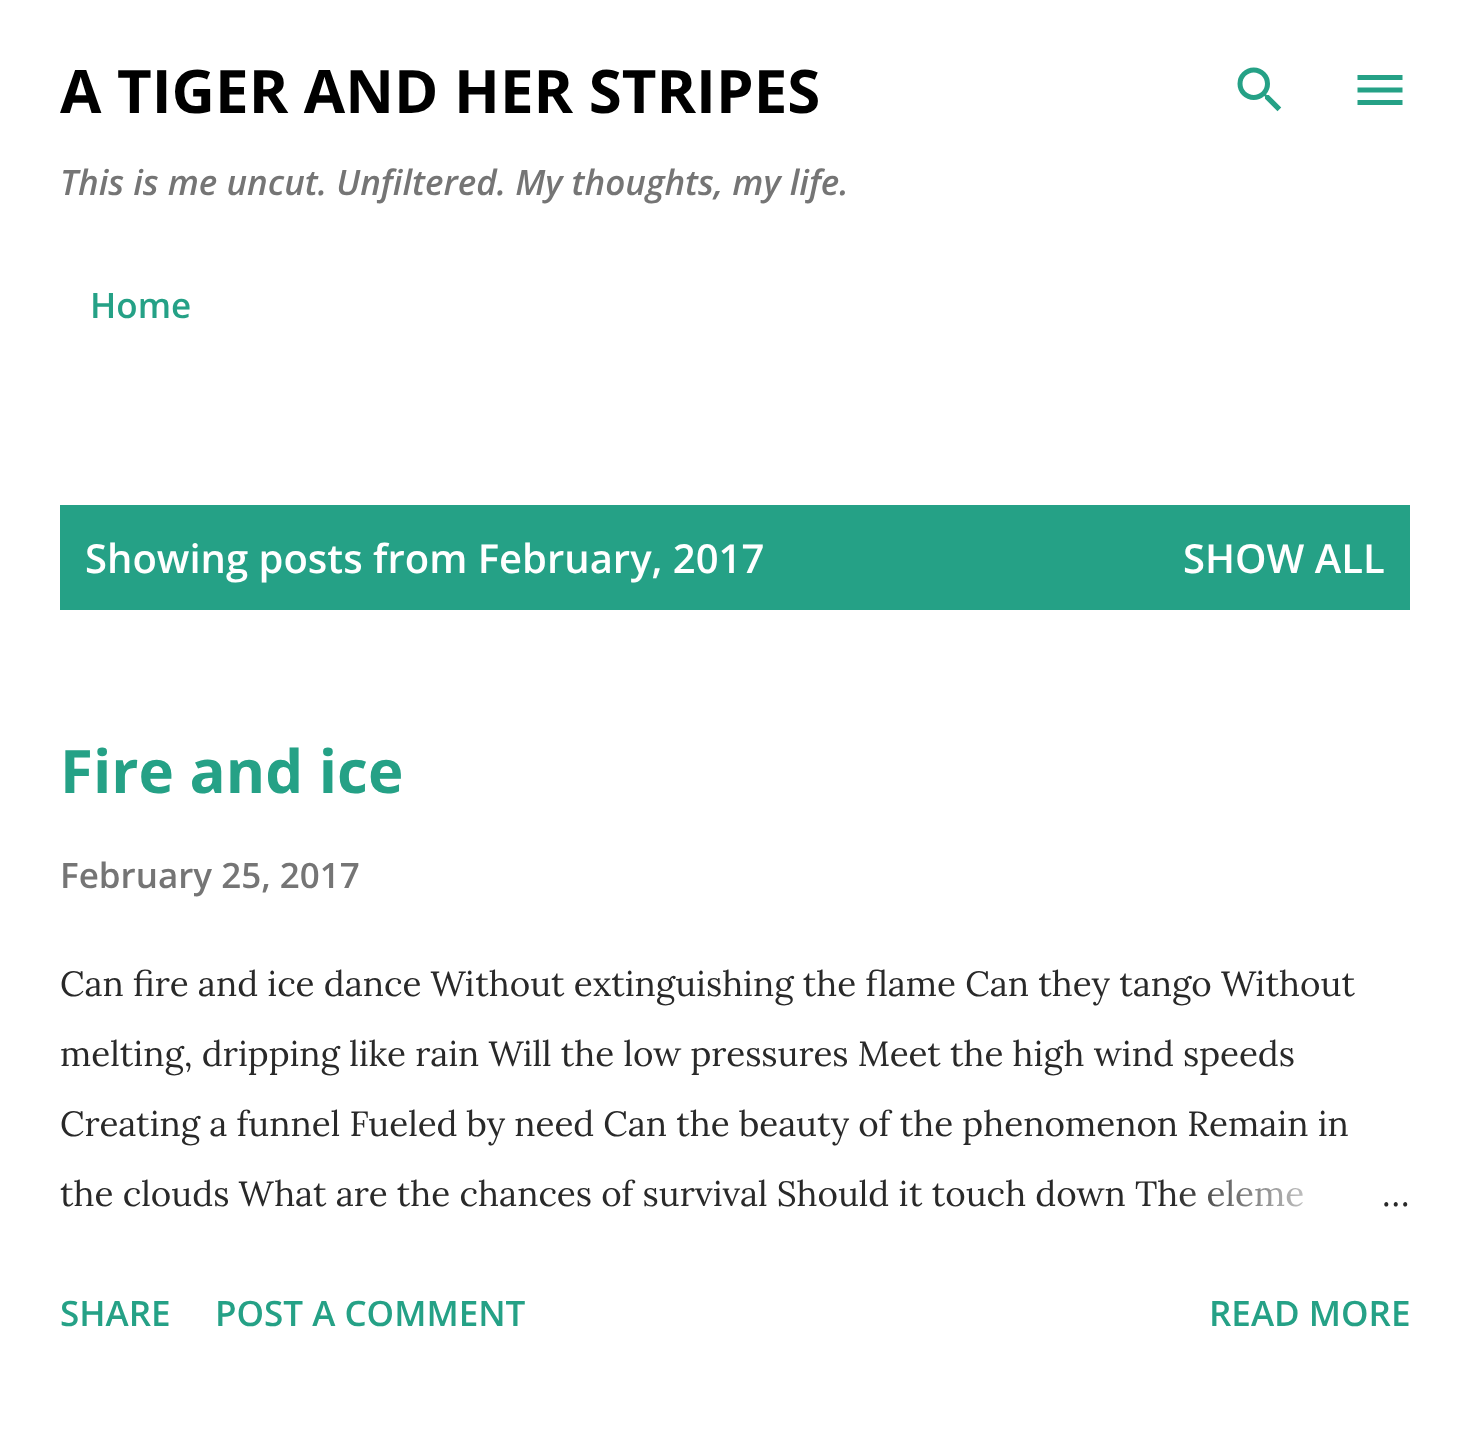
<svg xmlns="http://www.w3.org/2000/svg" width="1469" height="1442">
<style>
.a{font:bold 60px Open Sans;fill:#000}
.b{font:italic 600 35px Open Sans;fill:#757575}
.c{font:600 35px Open Sans;fill:#25a186}
.d{font:600 40px Open Sans;fill:#fff}
.e{font:bold 60px Open Sans;fill:#25a186}
.f{font:600 35px Open Sans;fill:#757575}
.g{font:35px Lora;fill:#292929}
</style>
<defs>
<linearGradient id="g1" gradientUnits="userSpaceOnUse" x1="1410" y1="1193" x2="1170" y2="1193"><stop offset="0" stop-color="#fff"/><stop offset="0.2" stop-color="#fff"/><stop offset="1" stop-color="#fff" stop-opacity="0"/></linearGradient>
</defs>
<rect width="100%" height="100%" fill="#fff"/>
<image href="1.png" x="1237" y="67" width="45" height="45"/>
<image href="2.png" x="1357" y="75" width="46" height="30"/>
<path fill="#25a186" d="M60 505h1350v105H60z"/>
<text class="a" x="60" y="113">A TIGER AND HER STRIPES</text>
<text class="b" x="60" y="195">This is me uncut. Unfiltered. My thoughts, my life.</text>
<text class="c" x="90" y="318">Home</text>
<text class="d" x="85" y="573">Showing posts from February, 2017</text>
<text class="d" x="1183" y="573">SHOW ALL</text>
<text class="e" x="60" y="793">Fire and ice</text>
<text class="f" x="60" y="888">February 25, 2017</text>
<text class="g" x="60" y="996">Can fire and ice dance Without extinguishing the flame Can they tango Without</text>
<text class="g" x="60" y="1066">melting, dripping like rain Will the low pressures Meet the high wind speeds</text>
<text class="g" x="60" y="1136">Creating a funnel Fueled by need Can the beauty of the phenomenon Remain in</text>
<text class="g" x="60" y="1206">the clouds What are the chances of survival Should it touch down The eleme</text>
<path fill="url(#g1)" d="M1174 1179h129v28H1174z"/>
<text class="g" x="1382" y="1206">…</text>
<text class="c" x="60" y="1326">SHARE</text>
<text class="c" x="215" y="1326">POST A COMMENT</text>
<text class="c" x="1209" y="1326">READ MORE</text>
</svg>
